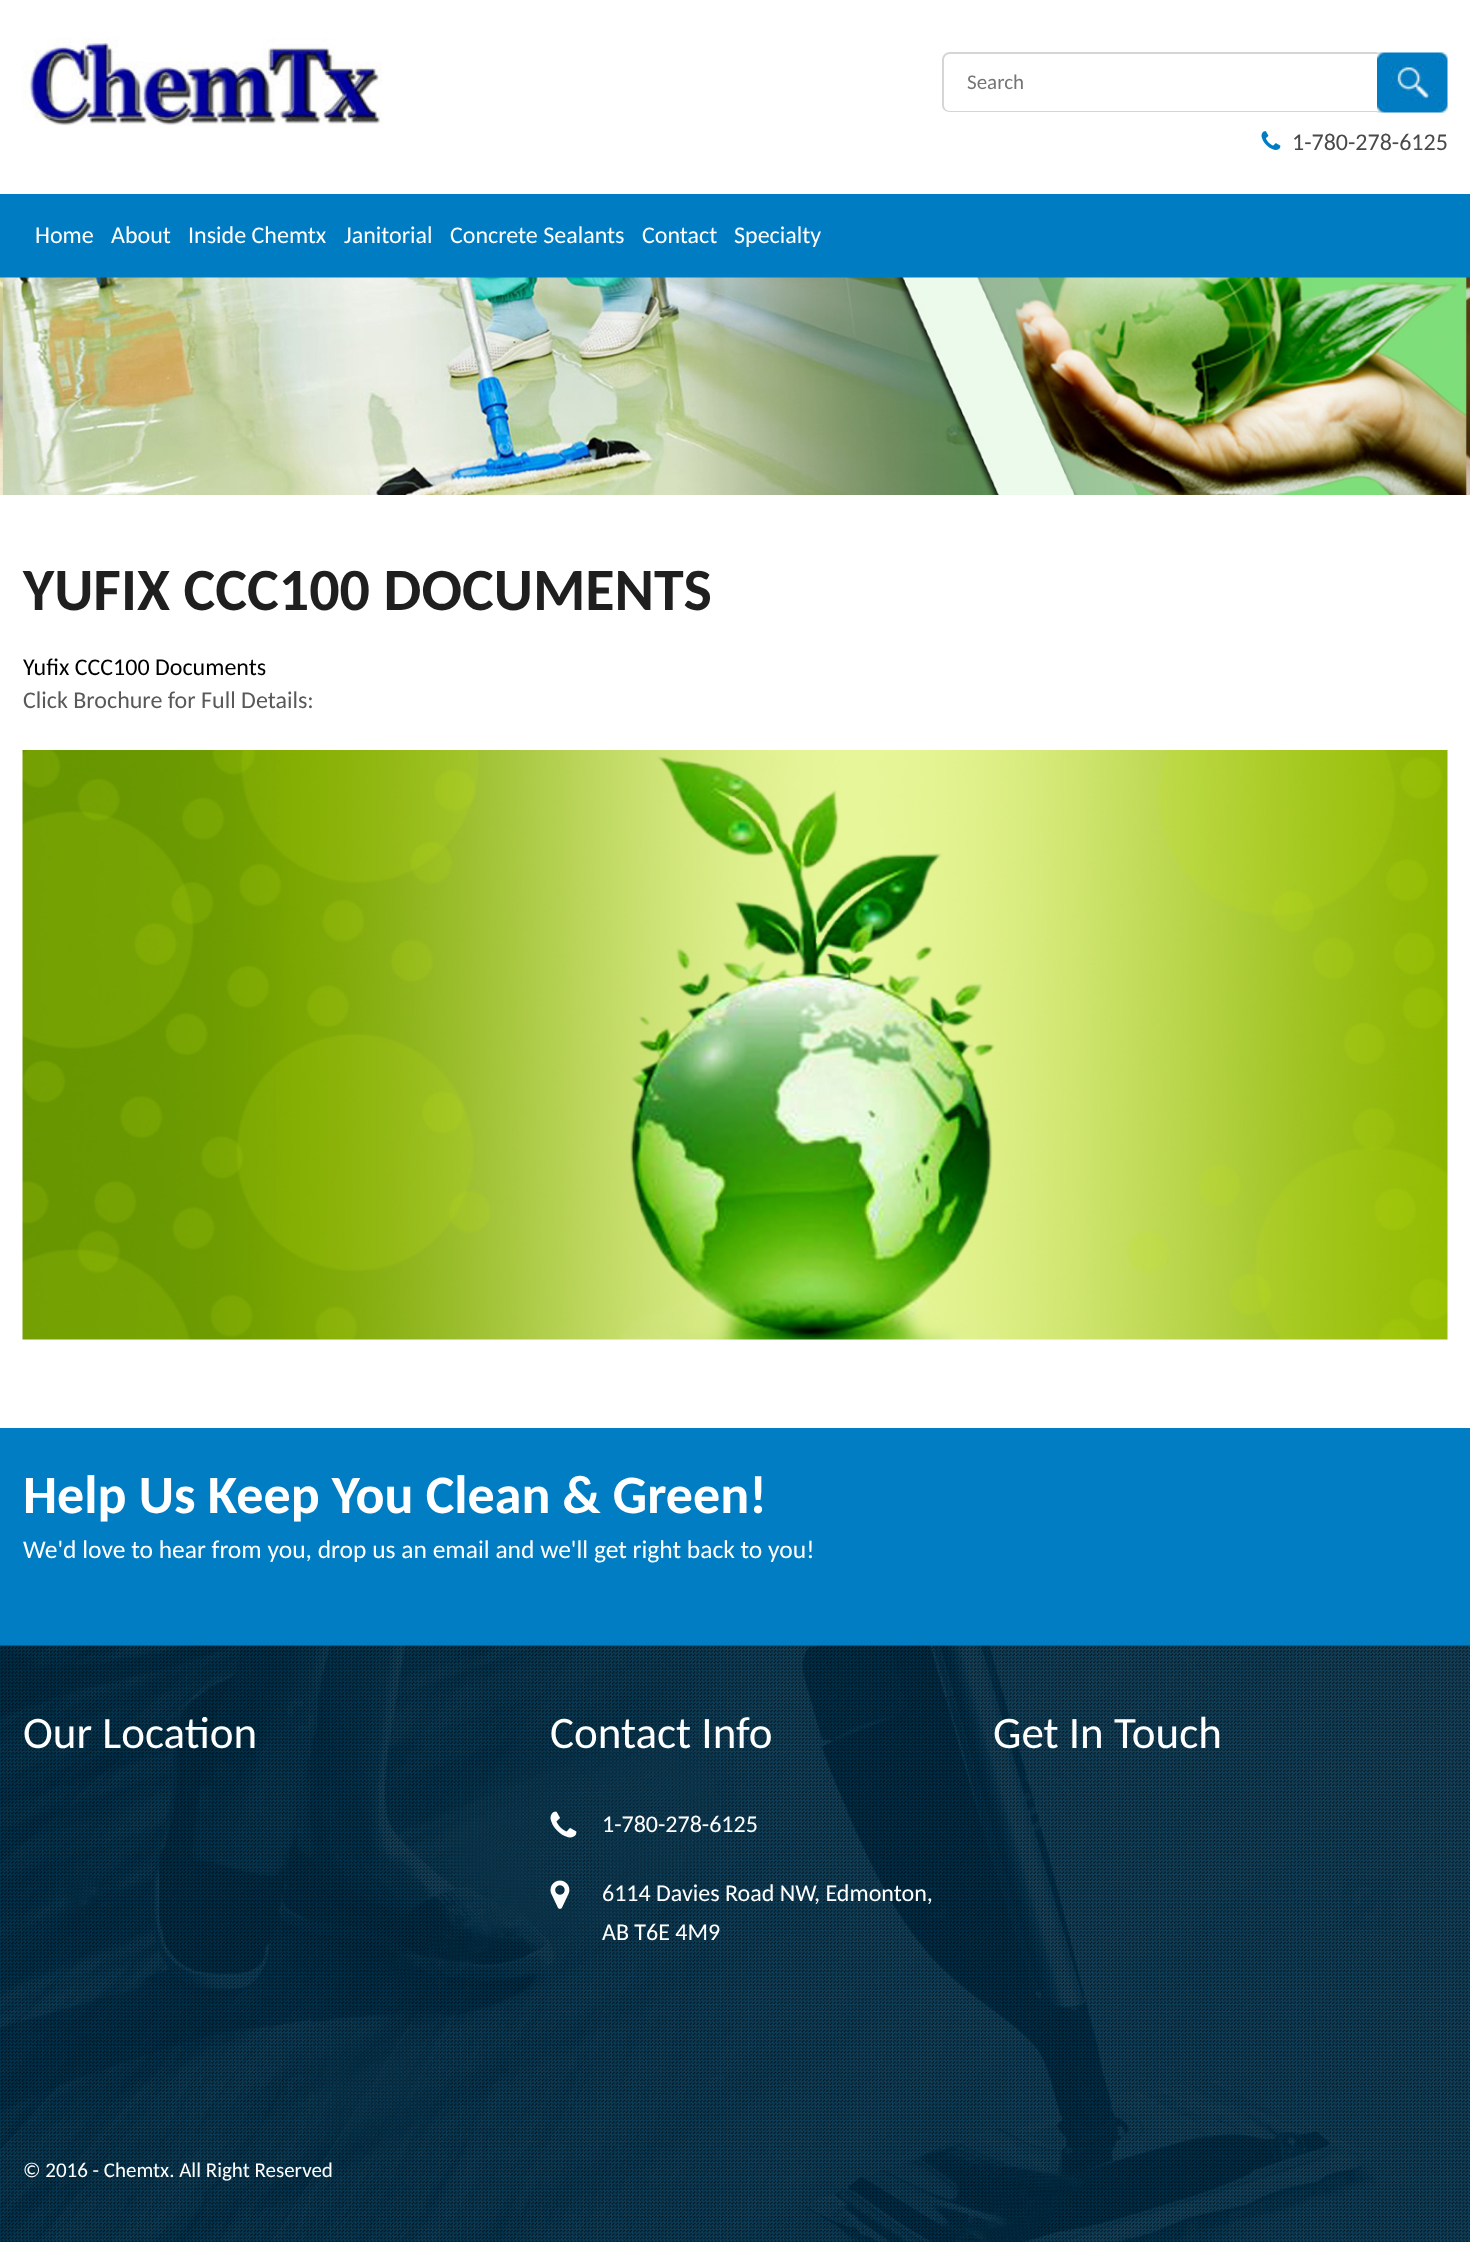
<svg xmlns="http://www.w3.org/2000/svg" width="1470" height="2242">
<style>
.a{font:21px Carlito;fill:#757575}
.b{font:24px Carlito;fill:#494949}
.c{font:24px Carlito;fill:#fff}
.d{font:bold 60px Carlito;fill:#1f1f1f}
.e{font:24px Carlito;fill:#000}
.f{font:24px Carlito;fill:#595959}
.g{font:bold 54px Carlito;fill:#fff}
.h{font:25.5px Carlito;fill:#fff}
.i{font:45px Carlito;fill:#fff}
.j{font:21px Carlito;fill:#fff}
</style>
<rect width="100%" height="100%" fill="#fff"/>
<image href="1.png" x="22" y="37" width="361" height="89"/>
<path fill="#d5d5d5" fill-rule="evenodd" d="M950 52h427v60h-427c-5 0-8-3-8-7v-45c0-4 3-8 8-8zm0 2h427v57h-427c-4 0-6-3-6-6v-45c0-3 2-6 6-6z"/>
<image href="2.png" x="1377" y="52" width="71" height="61"/>
<image href="3.png" x="1261" y="131" width="20" height="19"/>
<path fill="#007cc2" d="M0 194h1470v84H0z"/>
<image href="4.png" x="0" y="277" width="1470" height="218"/>
<image href="5.png" x="22" y="750" width="1426" height="590"/>
<path fill="#017dc3" d="M0 1428h1470v218H0z"/>
<image href="6.png" x="0" y="1645" width="1470" height="597"/>
<image href="7.png" x="550" y="1811" width="27" height="27"/>
<image href="8.png" x="550" y="1880" width="20" height="29"/>
<text class="a" x="967" y="89">Search</text>
<text class="b" x="1292" y="150">1-780-278-6125</text>
<text class="c" x="35" y="243">Home</text>
<text class="c" x="111" y="243">About</text>
<text class="c" x="188" y="243">Inside Chemtx</text>
<text class="c" x="344" y="243">Janitorial</text>
<text class="c" x="450" y="243">Concrete Sealants</text>
<text class="c" x="642" y="243">Contact</text>
<text class="c" x="734" y="243">Specialty</text>
<text class="d" x="23" y="610">YUFIX CCC100 DOCUMENTS</text>
<text class="e" x="23" y="675">Yufix CCC100 Documents</text>
<text class="f" x="23" y="708">Click Brochure for Full Details:</text>
<text class="g" x="23" y="1513">Help Us Keep You Clean &amp; Green!</text>
<text class="h" x="23" y="1558">We'd love to hear from you, drop us an email and we'll get right back to you!</text>
<text class="i" x="23" y="1748">Our Location</text>
<text class="i" x="550" y="1748">Contact Info</text>
<text class="c" x="602" y="1832">1-780-278-6125</text>
<text class="c" x="602" y="1901">6114 Davies Road NW, Edmonton,</text>
<text class="c" x="602" y="1940">AB T6E 4M9</text>
<text class="i" x="993" y="1748">Get In Touch</text>
<text class="j" x="23" y="2177">© 2016 - Chemtx. All Right Reserved</text>
</svg>
